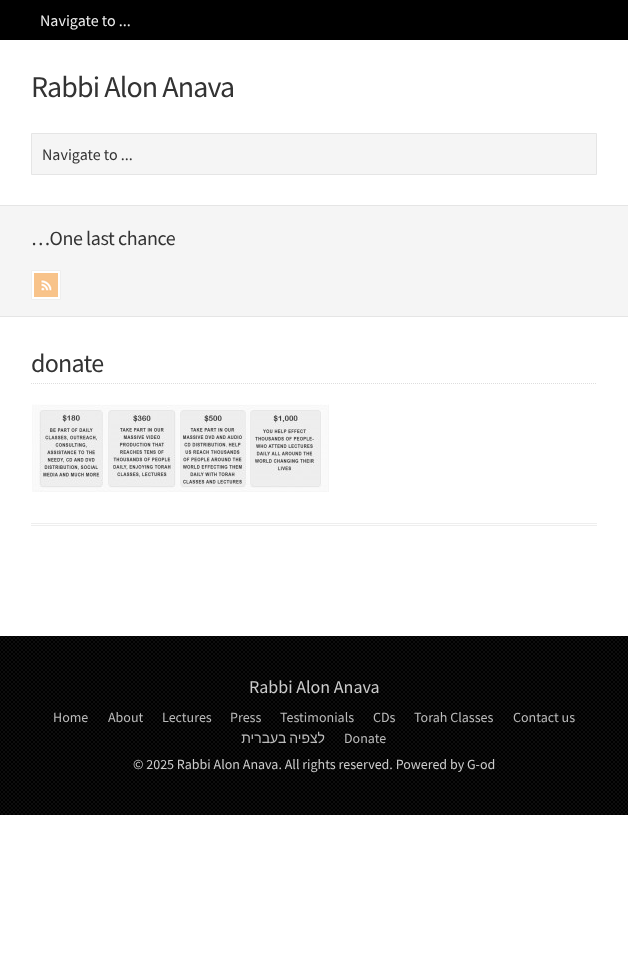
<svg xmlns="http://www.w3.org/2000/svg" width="628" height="965">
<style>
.a{font:16px Source Sans Pro;fill:#eee}
.b{font:30px Source Sans Pro;letter-spacing:-0.9px;fill:#333}
.c{font:16px Source Sans Pro;fill:#333}
.d{font:20px Source Sans Pro;letter-spacing:-0.4px;fill:#333}
.e{font:26px Source Sans Pro;letter-spacing:-0.75px;fill:#333}
.f{font:18px Source Sans Pro;fill:#ccc}
.g{font:14px Source Sans Pro;fill:#bbb}
.h{font:14px Liberation Sans;direction:rtl;fill:#bbb}
.i{font:14px Source Sans Pro;fill:#ccc}
</style>
<rect width="100%" height="100%" fill="#fff"/>
<path fill="#000" d="M0 0h628v40H0z"/>
<path fill="#f5f5f5" stroke="#e5e5e5" d="M31.5 133.5h565v41H31.5z"/>
<path fill="#f5f5f5" d="M0 206h628v110H0z"/>
<path fill="#e5e5e5" d="M0 205h628v1H0z"/>
<path fill="#e5e5e5" d="M0 316h628v1H0z"/>
<path fill="#fff" stroke="#eee" d="M31.5 270.5h29v29H31.5z"/>
<image href="1.png" x="34" y="273" width="24" height="24"/>
<path fill="#eee" d="M31 523h566v1H31z"/>
<path fill="#eee" d="M31 525h566v1H31z"/>
<path fill="none" stroke="#ddd" stroke-dasharray="1 1" d="M31 383.5h566"/>
<image href="2.png" x="32" y="404" width="297" height="88"/>
<path fill="#000" d="M0 636h628v179H0z"/>
<image href="3.png" x="0" y="636" width="628" height="179"/>
<text class="a" x="40" y="26">Navigate to ...</text>
<text class="b" x="31" y="97">Rabbi Alon Anava</text>
<text class="c" x="42" y="160">Navigate to ...</text>
<text class="d" x="31" y="245">…One last chance</text>
<text class="e" x="31" y="372">donate</text>
<text class="f" x="249" y="693">Rabbi Alon Anava</text>
<text class="g" x="53" y="722">Home</text>
<text class="g" x="108" y="722">About</text>
<text class="g" x="162" y="722">Lectures</text>
<text class="g" x="230" y="722">Press</text>
<text class="g" x="280" y="722">Testimonials</text>
<text class="g" x="373" y="722">CDs</text>
<text class="g" x="414" y="722">Torah Classes</text>
<text class="g" x="513" y="722">Contact us</text>
<text class="h" x="325" y="743" word-spacing="-1">לצפיה בעברית</text>
<text class="g" x="344" y="743">Donate</text>
<text class="i" x="133" y="769">© 2025 Rabbi Alon Anava. All rights reserved. Powered by G-od</text>
</svg>
